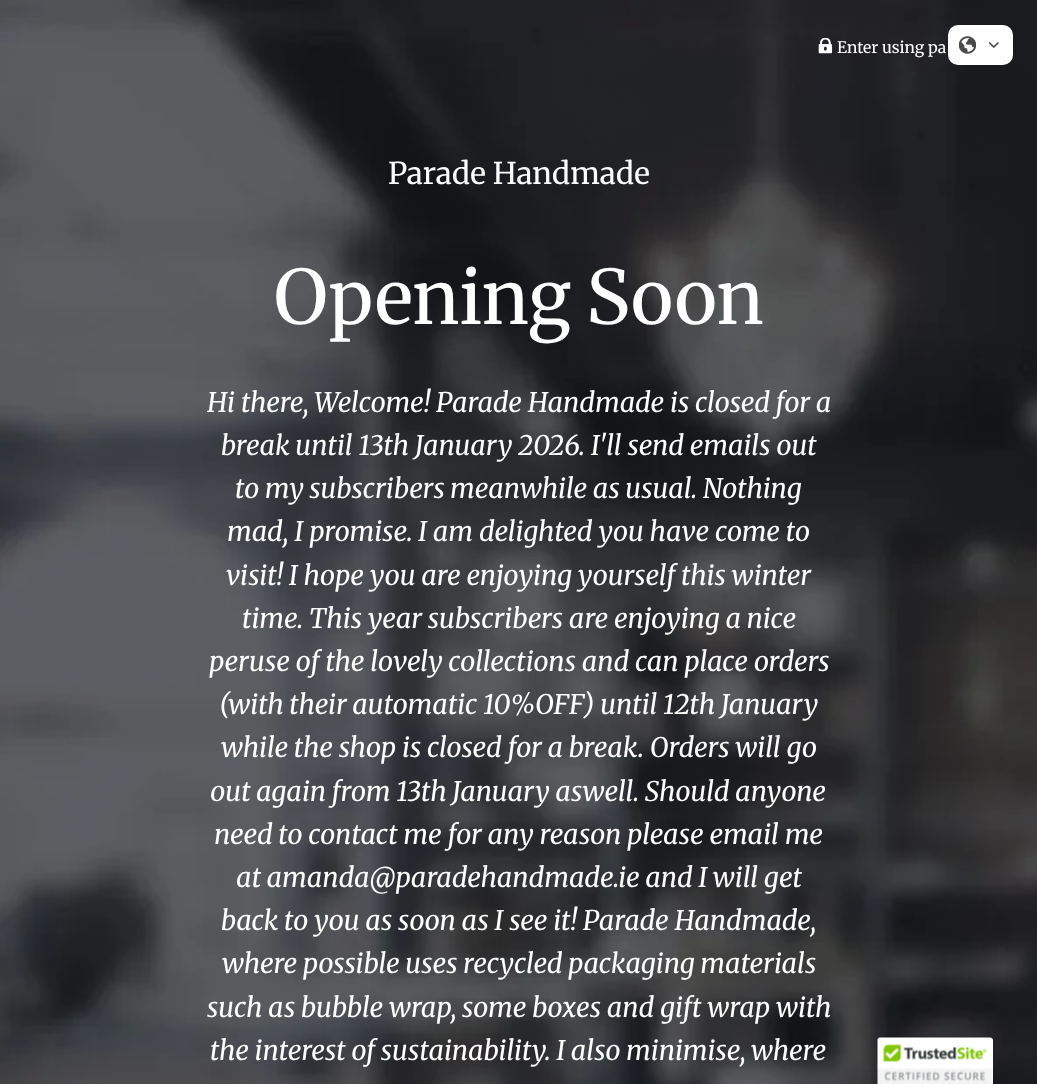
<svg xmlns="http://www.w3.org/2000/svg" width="1037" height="1084">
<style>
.a{font:15.75px Merriweather;fill:#fff}
.b{font:30px 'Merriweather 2';fill:#fff}
.c{font:75px 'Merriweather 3';fill:#fff}
.d{font:italic 27px Merriweather;fill:#fff}
</style>
<rect width="100%" height="100%" fill="#fff"/>
<image href="1.png" x="0" y="0" width="1037" height="1084"/>
<image href="2.png" x="818" y="38" width="15" height="16"/>
<rect fill="#fff" x="948" y="25" width="65" height="40" rx="10"/>
<image href="3.png" x="959" y="36" width="17" height="18"/>
<image href="4.png" x="988" y="42" width="11" height="6"/>
<rect fill="#00000033" filter="blur(3px)" x="878" y="1038" width="115" height="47" rx="2.5"/>
<path fill="#fff" d="M880.5 1038h110c1.5 0 2.5 1 2.5 2.5v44.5h-115v-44.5c0-1.5 1-2.5 2.5-2.5z"/>
<image href="5.png" x="877" y="1037" width="116" height="47"/>
<text class="a" x="837" y="53">Enter using pa</text>
<text class="b" x="388" y="184">Parade Handmade</text>
<text class="c" x="274" y="324">Opening Soon</text>
<text class="d" x="207" y="412">Hi there,</text>
<text class="d" x="314" y="412" word-spacing="-0.25">Welcome! Parade Handmade is closed for a</text>
<text class="d" x="221" y="455" word-spacing="-0.25">break until 13th January 2026. I'll send emails out</text>
<text class="d" x="235" y="498" word-spacing="-0.5">to my subscribers meanwhile as usual. Nothing</text>
<text class="d" x="227" y="541">mad, I promise.</text>
<text class="d" x="418" y="541" word-spacing="-0.25">I am delighted you have come to</text>
<text class="d" x="226" y="585" word-spacing="-0.25">visit! I hope you are enjoying yourself this winter</text>
<text class="d" x="242" y="628" word-spacing="-0.25">time. This year subscribers are enjoying a nice</text>
<text class="d" x="209" y="671" word-spacing="-0.25">peruse of the lovely collections and can place orders</text>
<text class="d" x="219" y="714" word-spacing="-0.5">(with their automatic 10%OFF) until 12th January</text>
<text class="d" x="221" y="757" word-spacing="-0.25">while the shop is closed for a break. Orders will go</text>
<text class="d" x="210" y="801" word-spacing="-0.5">out again from 13th January aswell. Should anyone</text>
<text class="d" x="214" y="844" word-spacing="-0.25">need to contact me for any reason please email me</text>
<text class="d" x="236" y="887" word-spacing="-0.5">at amanda@paradehandmade.ie and I will get</text>
<text class="d" x="221" y="930" word-spacing="-0.25">back to you as soon as I see it! Parade Handmade,</text>
<text class="d" x="222" y="973" word-spacing="-0.5">where possible uses recycled packaging materials</text>
<text class="d" x="207" y="1017" word-spacing="-0.25">such as bubble wrap, some boxes and gift wrap with</text>
<text class="d" x="210" y="1060" word-spacing="-0.5">the interest of sustainability. I also minimise, where</text>
</svg>
